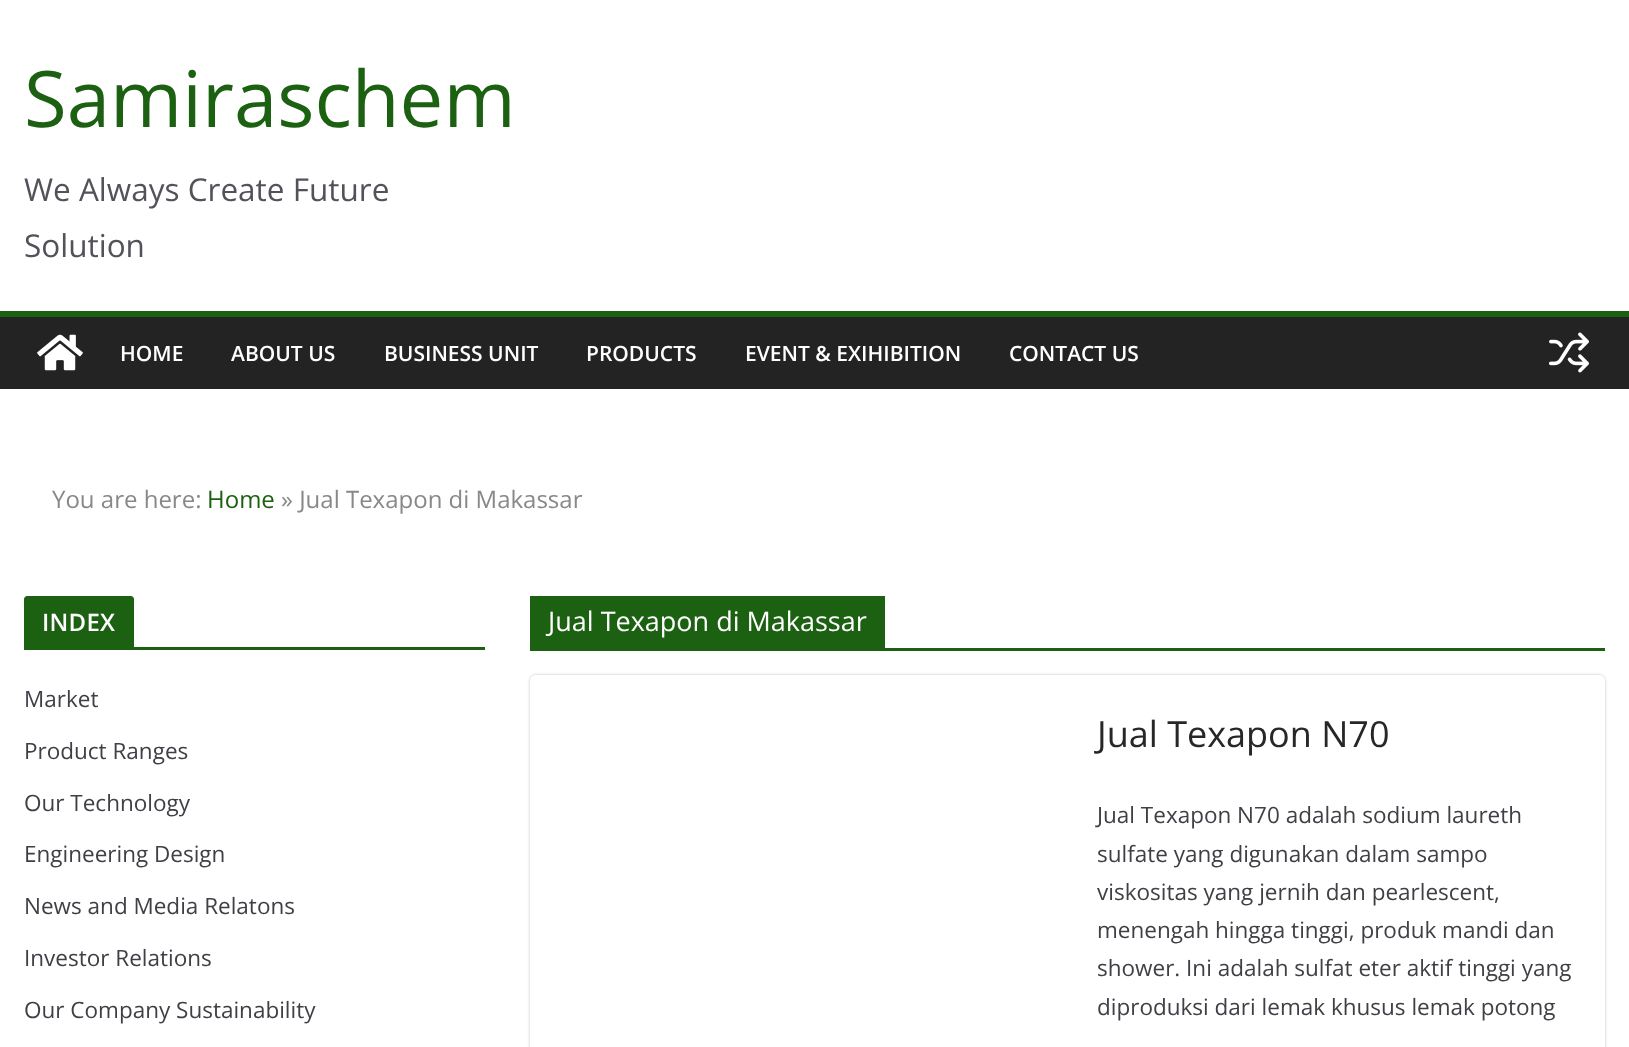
<svg xmlns="http://www.w3.org/2000/svg" width="1629" height="1047">
<style>
.a{font:78px Open Sans;fill:#1c6011}
.b{font:31.5px 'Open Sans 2';fill:#52525b}
.c{font:600 21px Open Sans;fill:#fff}
.d{font:24px 'Open Sans 2';fill:#888}
.e{font:24px 'Open Sans 2';fill:#1c6011}
.f{font:600 24px Open Sans;letter-spacing:0.25px;fill:#fff}
.g{font:22.5px 'Open Sans 2';fill:#3f3f46}
.h{font:27px Open Sans;fill:#fff}
.i{font:36px Open Sans;fill:#27272a}
</style>
<defs>
<clipPath id="clip1"><path d="M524 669h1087v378h-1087zm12 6h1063c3.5 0 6 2.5 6 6v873c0 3.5-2.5 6-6 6h-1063c-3.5 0-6-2.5-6-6v-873c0-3.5 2.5-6 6-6z" clip-rule="evenodd"/></clipPath>
</defs>
<rect width="100%" height="100%" fill="#fff"/>
<path fill="#232323" d="M0 317h1629v72H0z"/>
<path fill="#1c6011" d="M0 311h1629v6H0z"/>
<image href="1.png" x="37" y="334" width="46" height="37"/>
<image href="2.png" x="1548" y="332" width="41" height="41"/>
<path fill="#1c6011" d="M24 647h461v3H24z"/>
<path fill="#1c6011" d="M27 596h104c1.5 0 3 1.5 3 3v48h-110v-48c0-1.5 1.5-3 3-3z"/>
<path fill="#1c6011" d="M530 648h1075v3H530z"/>
<path fill="#1c6011" d="M530 596h355v52H530z"/>
<g clip-path="url(#clip1)">
<rect fill="#0000003d" filter="blur(1.5px)" x="530" y="675" width="1075" height="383" rx="6"/>
</g>
<text class="a" x="24" y="127">Samiraschem</text>
<text class="b" x="24" y="201">We Always Create Future</text>
<text class="b" x="24" y="257">Solution</text>
<text class="c" x="120" y="361">HOME</text>
<text class="c" x="231" y="361">ABOUT US</text>
<text class="c" x="384" y="361">BUSINESS UNIT</text>
<text class="c" x="586" y="361">PRODUCTS</text>
<text class="c" x="745" y="361">EVENT &amp; EXIHIBITION</text>
<text class="c" x="1009" y="361">CONTACT US</text>
<text class="d" x="52" y="508">You are here:</text>
<text class="e" x="207" y="508">Home</text>
<text class="d" x="281" y="508">» Jual Texapon di Makassar</text>
<text class="f" x="42" y="631">INDEX</text>
<text class="g" x="24" y="707">Market</text>
<text class="g" x="24" y="759">Product Ranges</text>
<text class="g" x="24" y="811">Our Technology</text>
<text class="g" x="24" y="862">Engineering Design</text>
<text class="g" x="24" y="914">News and Media Relatons</text>
<text class="g" x="24" y="966">Investor Relations</text>
<text class="g" x="24" y="1018">Our Company Sustainability</text>
<text class="h" x="548" y="631">Jual Texapon di Makassar</text>
<text class="i" x="1097" y="747">Jual Texapon N70</text>
<text class="g" x="1097" y="823">Jual Texapon N70 adalah sodium laureth</text>
<text class="g" x="1097" y="862">sulfate yang digunakan dalam sampo</text>
<text class="g" x="1097" y="900">viskositas yang jernih dan pearlescent,</text>
<text class="g" x="1097" y="938">menengah hingga tinggi, produk mandi dan</text>
<text class="g" x="1097" y="976">shower. Ini adalah sulfat eter aktif tinggi yang</text>
<text class="g" x="1097" y="1015">diproduksi dari lemak khusus lemak potong</text>
</svg>
